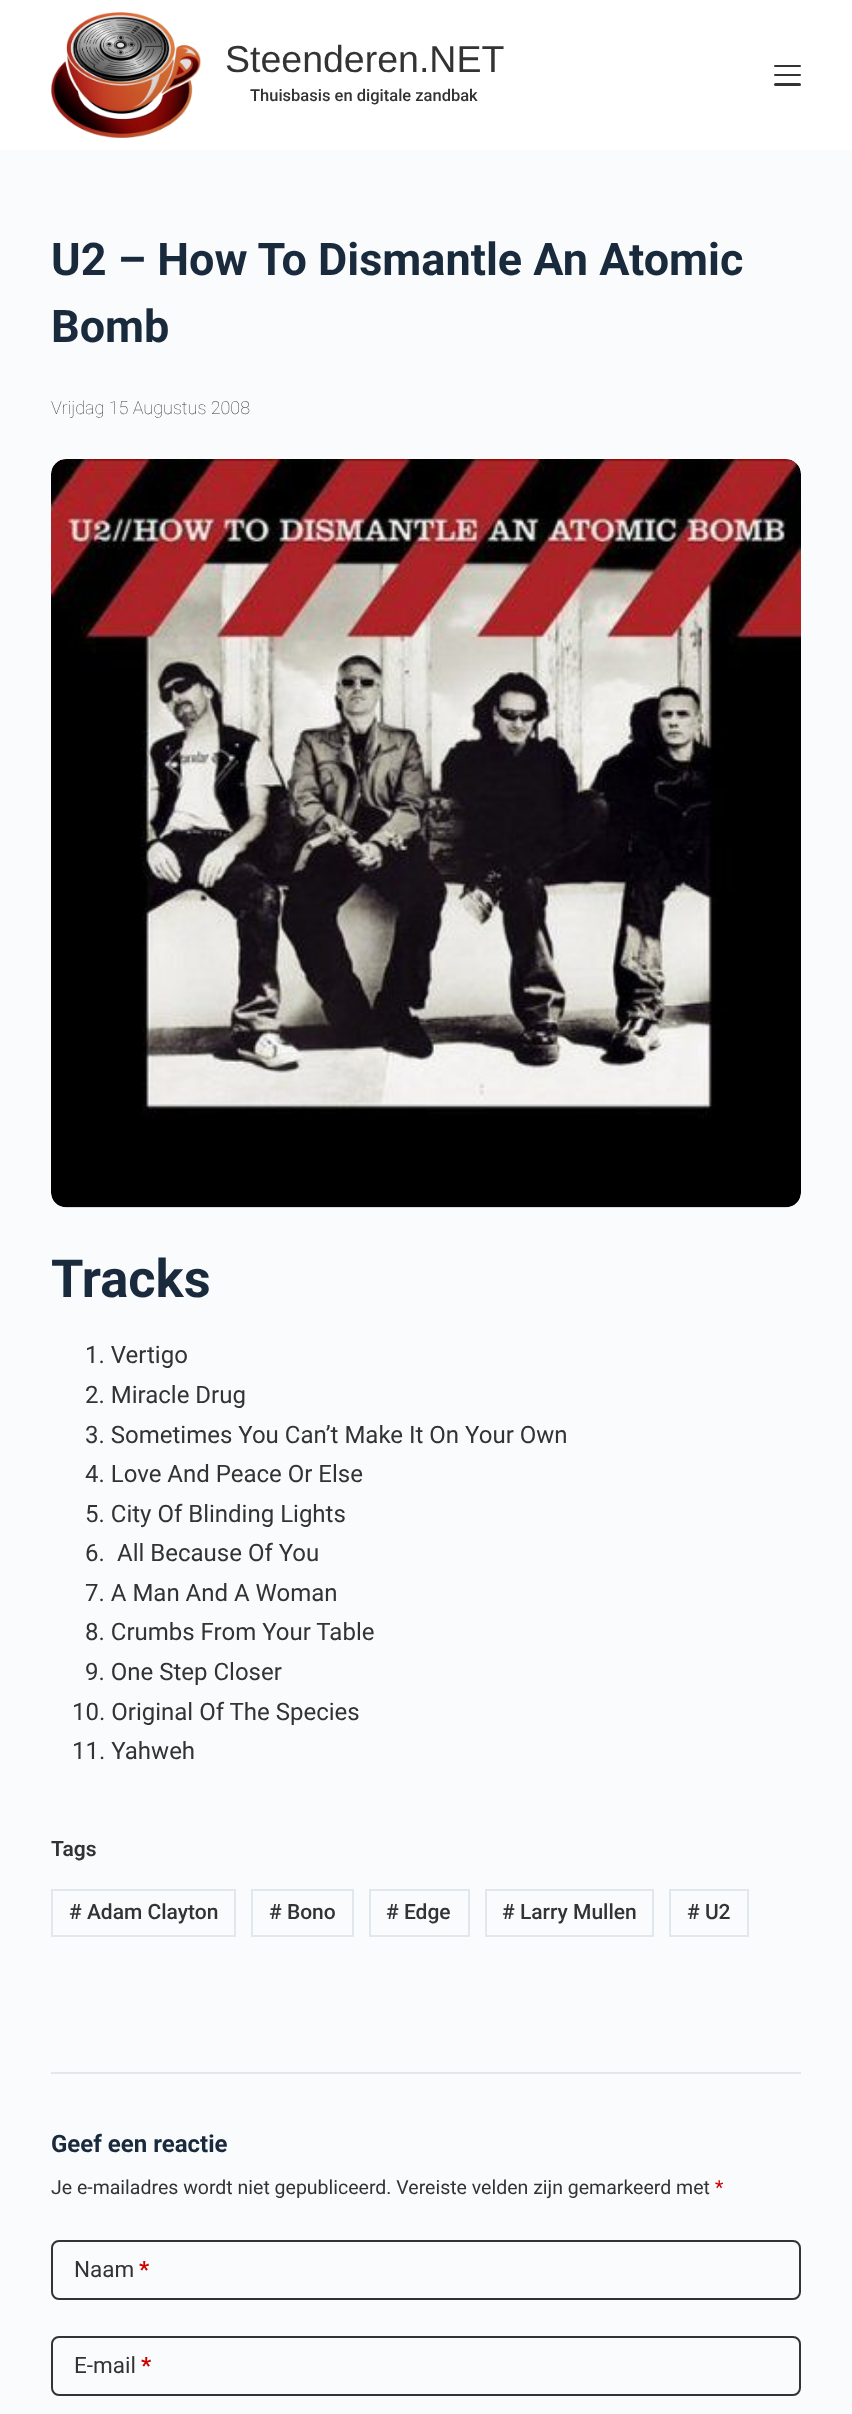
<svg xmlns="http://www.w3.org/2000/svg" width="852" height="2414">
<style>
.a{font:37.5px Liberation Sans;fill:#333}
.b{font:500 16.5px Roboto;fill:#333}
.c{font:bold 45px Roboto;fill:#192a3d}
.d{font:100 18px Roboto;fill:#333}
.e{font:bold 52.5px Roboto;fill:#192a3d}
.f{font:24px Roboto;fill:#333}
.g{font:600 21px Roboto;fill:#333}
.h{font:500 21px Roboto;fill:#333}
.i{font:bold 24px Roboto;fill:#192a3d}
.j{font:19.5px Roboto;fill:#333}
.k{font:19.5px Roboto;fill:#c00}
.l{font:22.5px Roboto;fill:#333}
.m{font:bold 22.5px Roboto;fill:#c00}
</style>
<rect width="100%" height="100%" fill="#fafbfc"/>
<path fill="#fff" d="M0 0h852v150H0z"/>
<image href="1.png" x="51" y="12" width="150" height="126"/>
<rect fill="#333" x="774" y="65" width="27" height="2" rx="1"/>
<rect fill="#333" x="774" y="74" width="27" height="2" rx="1"/>
<rect fill="#333" x="774" y="83" width="27" height="3" rx="1.5"/>
<image href="2.png" x="51" y="459" width="750" height="749"/>
<path fill="none" stroke="#e1e8ed" stroke-width="2" d="M52 1890h183v46H52z"/>
<path fill="none" stroke="#e1e8ed" stroke-width="2" d="M252 1890h101v46H252z"/>
<path fill="none" stroke="#e1e8ed" stroke-width="2" d="M370 1890h99v46H370z"/>
<path fill="none" stroke="#e1e8ed" stroke-width="2" d="M486 1890h167v46H486z"/>
<path fill="none" stroke="#e1e8ed" stroke-width="2" d="M670 1890h78v46H670z"/>
<path fill="#e1e8ed" d="M51 2072h750v2H51z"/>
<rect fill="none" stroke="#333" stroke-width="2" x="52" y="2241" width="748" height="58" rx="7"/>
<rect fill="none" stroke="#333" stroke-width="2" x="52" y="2337" width="748" height="58" rx="7"/>
<text class="a" x="225" y="72">Steenderen.NET</text>
<text class="b" x="250" y="101">Thuisbasis en digitale zandbak</text>
<text class="c" x="51" y="275">U2 – How To Dismantle An Atomic</text>
<text class="c" x="51" y="342">Bomb</text>
<text class="d" x="51" y="414">Vrijdag 15 Augustus 2008</text>
<text class="e" x="51" y="1297">Tracks</text>
<text class="f" x="85" y="1363">1. Vertigo</text>
<text class="f" x="85" y="1403">2. Miracle Drug</text>
<text class="f" x="85" y="1443">3. Sometimes You Can’t Make It On Your Own</text>
<text class="f" x="85" y="1482">4. Love And Peace Or Else</text>
<text class="f" x="85" y="1522">5. City Of Blinding Lights</text>
<text class="f" x="85" y="1561">6.</text>
<text class="f" x="117" y="1561">All Because Of You</text>
<text class="f" x="85" y="1601">7. A Man And A Woman</text>
<text class="f" x="85" y="1640">8. Crumbs From Your Table</text>
<text class="f" x="85" y="1680">9. One Step Closer</text>
<text class="f" x="72" y="1720">10. Original Of The Species</text>
<text class="f" x="72" y="1759">11. Yahweh</text>
<text class="g" x="51" y="1856">Tags</text>
<text class="h" x="69" y="1919"># Adam Clayton</text>
<text class="h" x="269" y="1919"># Bono</text>
<text class="h" x="386" y="1919"># Edge</text>
<text class="h" x="502" y="1919"># Larry Mullen</text>
<text class="h" x="687" y="1919"># U2</text>
<text class="i" x="51" y="2152">Geef een reactie</text>
<text class="j" x="51" y="2194">Je e-mailadres wordt niet gepubliceerd. Vereiste velden zijn gemarkeerd met</text>
<text class="k" x="715" y="2194">*</text>
<text class="l" x="74" y="2277">Naam</text>
<text class="m" x="139" y="2277">*</text>
<text class="l" x="74" y="2373">E-mail</text>
<text class="m" x="141" y="2373">*</text>
</svg>
